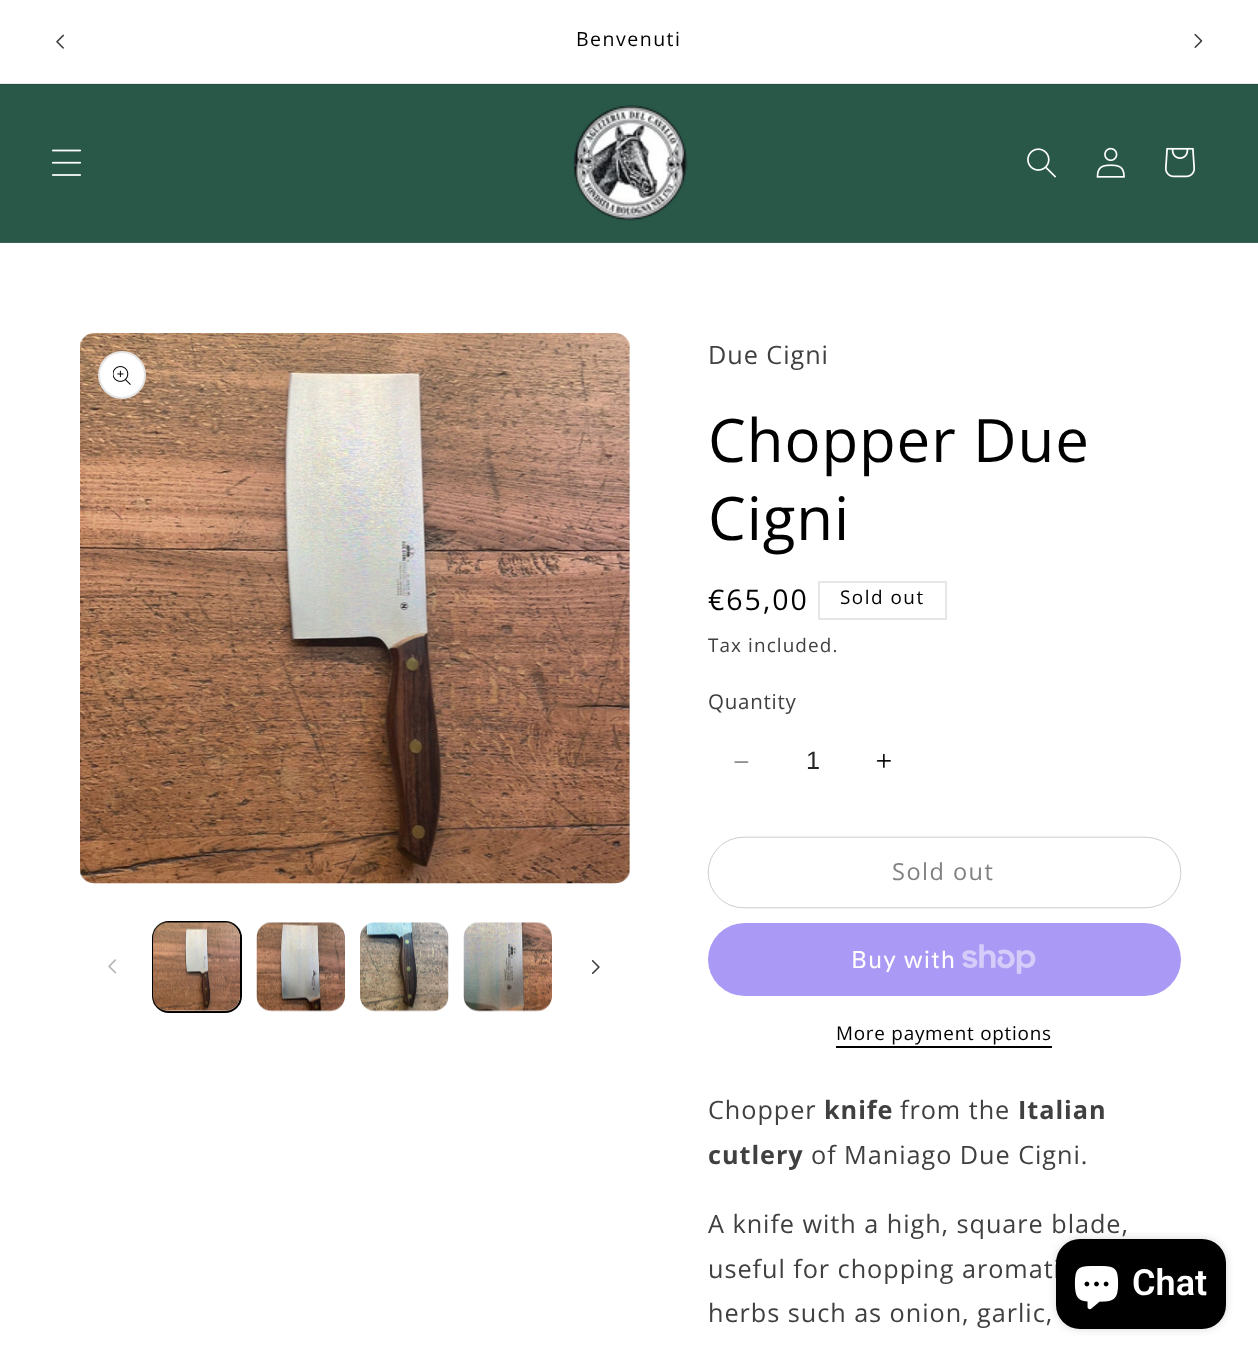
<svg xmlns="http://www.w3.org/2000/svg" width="1258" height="1360">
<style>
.a{font:19.5px Open Sans;letter-spacing:1.5px;fill:#000}
.b{font:25.25px Open Sans;letter-spacing:0.95px;fill:#404040}
.c{font:60px Open Sans;letter-spacing:0.9px;fill:#000}
.d{font:28.5px Open Sans;letter-spacing:2px;fill:#000}
.e{font:18.9px Open Sans;letter-spacing:1.5px;fill:#000}
.f{font:18.9px Open Sans;letter-spacing:1.1px;fill:#404040}
.g{font:20.5px Open Sans;letter-spacing:0.75px;fill:#404040}
.h{font:25.25px Liberation Sans;fill:#262626}
.i{font:23.5px Open Sans;letter-spacing:1.5px;fill:#808080}
.j{font:24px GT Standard;letter-spacing:0.95px;fill:#fff}
.k{font:18.9px Open Sans;letter-spacing:0.75px;fill:#000}
.l{font:bold 25.25px Open Sans;letter-spacing:0.95px;fill:#404040}
.m{font:600 36px Roboto;fill:#fff}
</style>
<rect width="100%" height="100%" fill="#fff"/>
<path fill="#ebebeb" d="M0 83h1258v1H0z"/>
<image href="1.png" x="56" y="34" width="8" height="15"/>
<image href="2.png" x="1194" y="33" width="9" height="15"/>
<path fill="#295848" d="M0 85h1258v157H0z"/>
<path fill="#265142" d="M0 84h1258v1H0z"/>
<path fill="#3a6557" d="M0 242h1258v1H0z"/>
<image href="3.png" x="51" y="149" width="31" height="27"/>
<image href="4.png" x="573" y="105" width="115" height="116"/>
<image href="5.png" x="1027" y="148" width="29" height="30"/>
<image href="6.png" x="1096" y="147" width="29" height="31"/>
<image href="7.png" x="1165" y="147" width="30" height="31"/>
<image href="8.png" x="80" y="333" width="550" height="551"/>
<circle fill="#fff" cx="122" cy="375" r="24"/>
<circle fill="none" stroke="#0000001a" stroke-width="2" cx="122" cy="375" r="23"/>
<image href="9.png" x="113" y="366" width="18" height="19"/>
<image href="10.png" x="108" y="959" width="8" height="15"/>
<rect fill="none" stroke="#000" stroke-width="2" x="153" y="922" width="88" height="90" rx="16"/>
<image href="11.png" x="153" y="922" width="87" height="90"/>
<image href="12.png" x="256" y="922" width="89" height="90"/>
<image href="13.png" x="360" y="922" width="89" height="90"/>
<image href="14.png" x="463" y="922" width="89" height="90"/>
<image href="15.png" x="591" y="960" width="9" height="14"/>
<path fill="none" stroke="#e6e6e6" stroke-width="2" d="M819 582h127v37H819z"/>
<image href="16.png" x="734" y="761" width="15" height="2"/>
<image href="17.png" x="876" y="753" width="15" height="15"/>
<rect fill="none" stroke="#808080" stroke-width="0.4" x="708.2" y="837.2" width="472.6" height="70.6" rx="35.3"/>
<rect fill="#aa99f5" x="708" y="923" width="473" height="73" rx="36.5"/>
<image href="18.png" x="962" y="944" width="74" height="30"/>
<path fill="#000" d="M836 1046h216v2H836z"/>
<rect fill="#00000026" filter="blur(4px)" x="1056" y="1239" width="170" height="90" rx="24"/>
<text class="a" x="576" y="46">Benvenuti</text>
<text class="b" x="708" y="364">Due Cigni</text>
<text class="c" x="708" y="462">Chopper Due</text>
<text class="c" x="708" y="540">Cigni</text>
<text class="d" x="708" y="610">€65,00</text>
<text class="e" x="840" y="604">Sold out</text>
<text class="f" x="708" y="652">Tax included.</text>
<text class="g" x="708" y="709">Quantity</text>
<text class="h" x="806" y="769">1</text>
<text class="i" x="892" y="880">Sold out</text>
<text class="j" x="851" y="968">Buy with</text>
<text class="k" x="836" y="1040">More payment options</text>
<text class="b" x="708" y="1119">Chopper</text>
<text class="l" x="824" y="1119">knife</text>
<text class="b" x="900" y="1119">from the</text>
<text class="l" x="1018" y="1119">Italian</text>
<text class="l" x="708" y="1164">cutlery</text>
<text class="b" x="811" y="1164">of Maniago Due Cigni.</text>
<text class="b" x="708" y="1233">A knife with a high, square blade,</text>
<text class="b" x="708" y="1278">useful for chopping aromati</text>
<text class="b" x="708" y="1322">herbs such as onion, garlic,</text>
<rect fill="#000" x="1056" y="1239" width="170" height="90" rx="24"/>
<image href="19.png" x="1074" y="1266" width="45" height="44"/>
<text class="m" x="1132" y="1295">Chat</text>
</svg>
